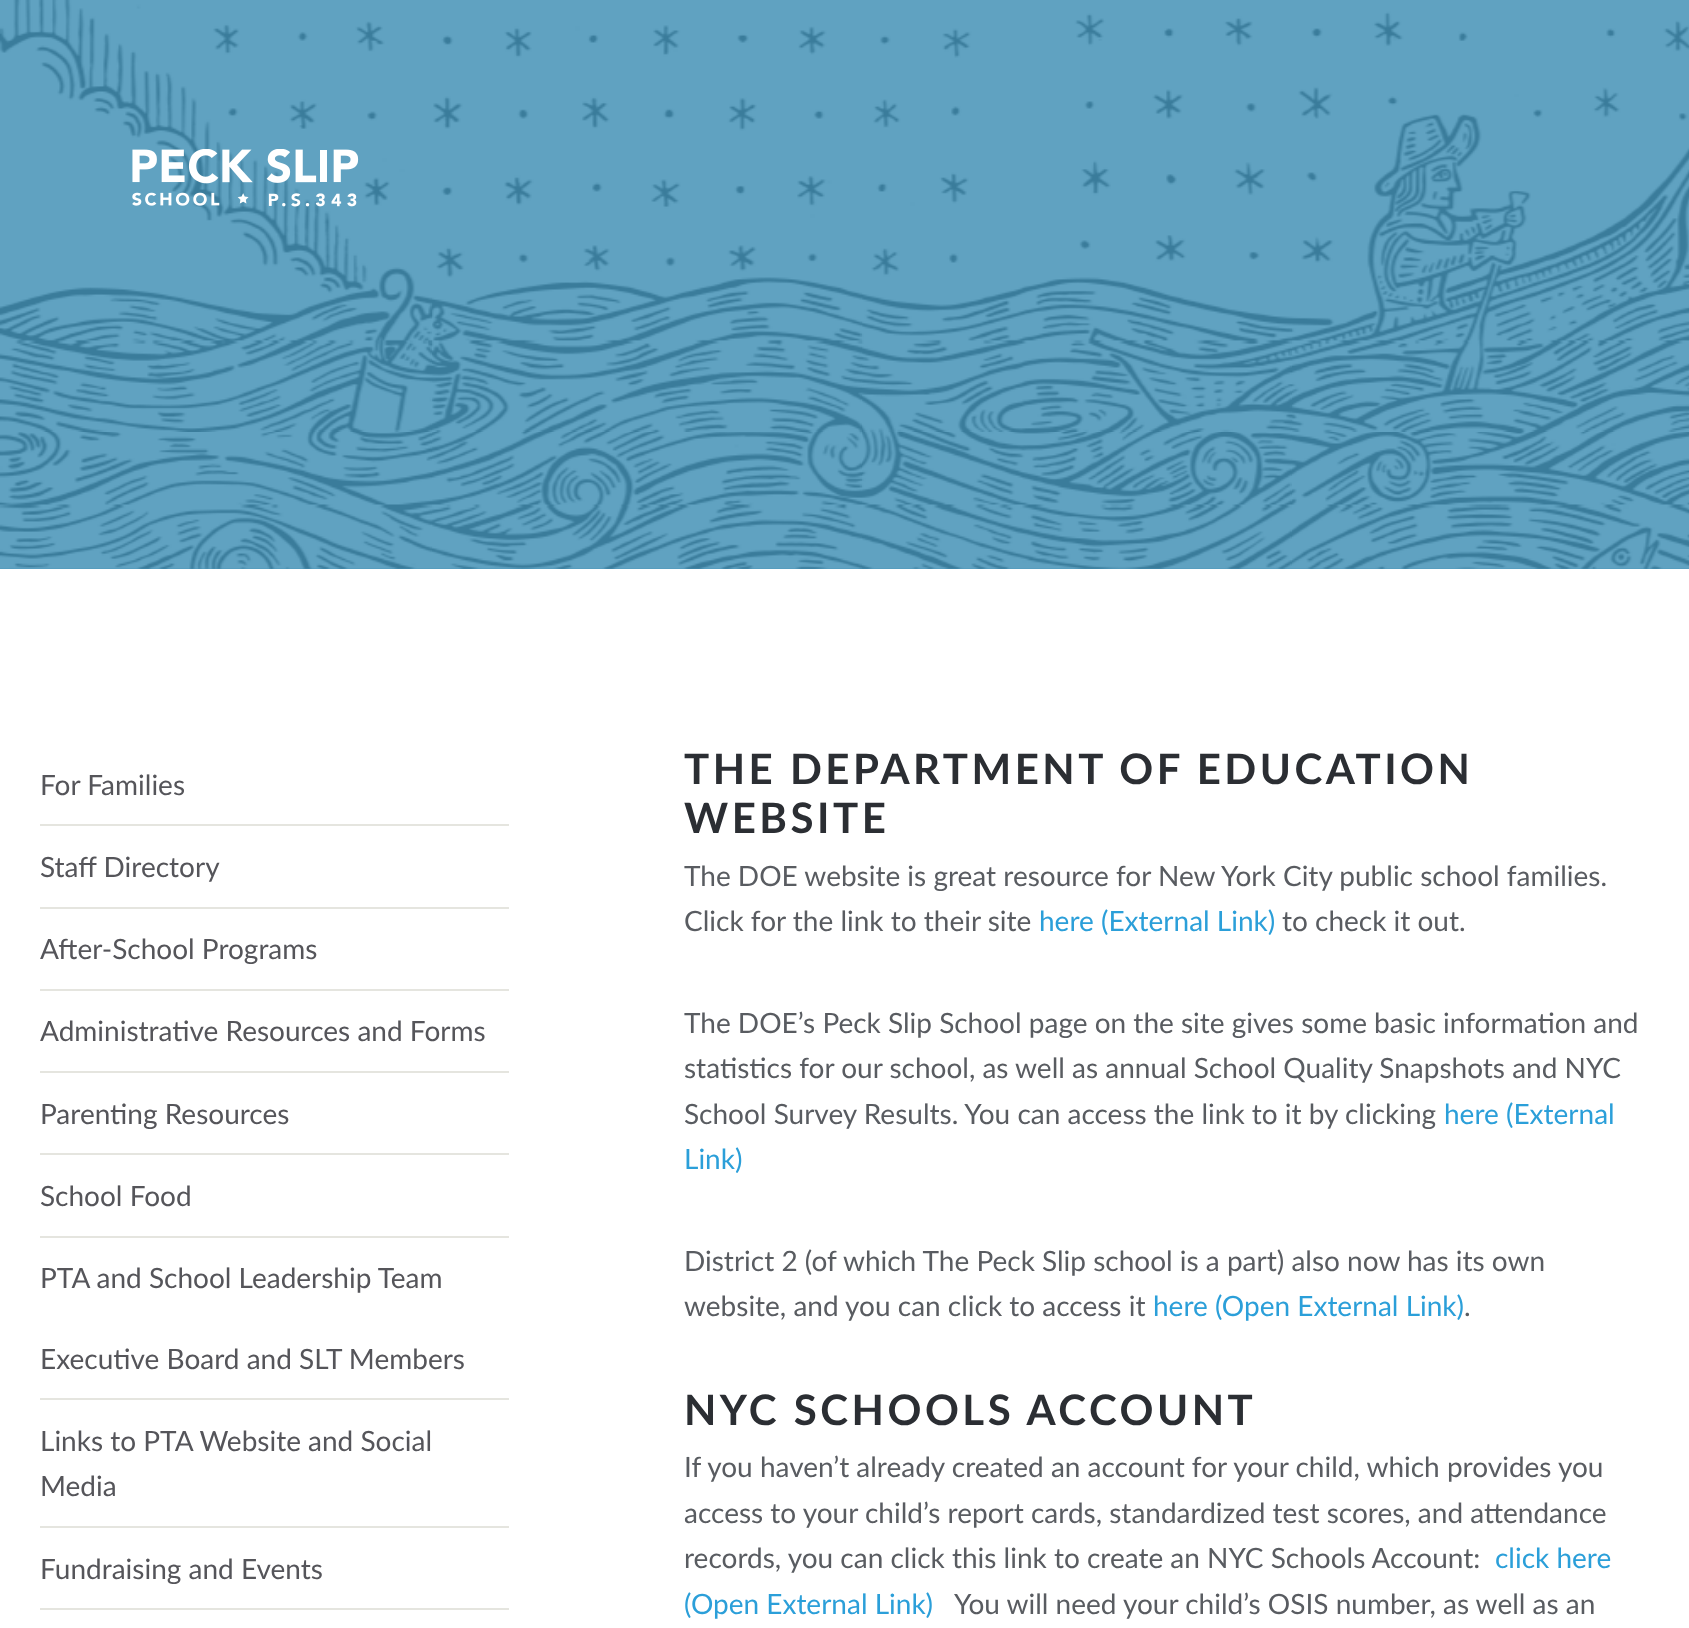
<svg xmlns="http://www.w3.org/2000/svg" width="1689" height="1628">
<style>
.a{font:28px Lato;fill:#55555a}
.b{font:bold 42px Lato;letter-spacing:3.5px;fill:#2b2e33}
.c{font:28px Lato;fill:#595c61}
.d{font:28px Lato;fill:#2b9fd9}
</style>
<rect width="100%" height="100%" fill="#4592b7"/>
<image href="1.png" x="0" y="0" width="1689" height="569"/>
<image href="2.png" x="132" y="149" width="227" height="58"/>
<path fill="#fff" d="M0 569h1689v1059H0z"/>
<path fill="#e5e5df" d="M40 824h469v2H40z"/>
<path fill="#e5e5df" d="M40 907h469v2H40z"/>
<path fill="#e5e5df" d="M40 989h469v2H40z"/>
<path fill="#e5e5df" d="M40 1071h469v2H40z"/>
<path fill="#e5e5df" d="M40 1153h469v2H40z"/>
<path fill="#e5e5df" d="M40 1236h469v2H40z"/>
<path fill="#e5e5df" d="M40 1398h469v2H40z"/>
<path fill="#e5e5df" d="M40 1526h469v2H40z"/>
<path fill="#e5e5df" d="M40 1608h469v2H40z"/>
<text class="a" x="40" y="795">For Families</text>
<text class="a" x="40" y="877">Staff Directory</text>
<text class="a" x="40" y="959">After-School Programs</text>
<text class="a" x="40" y="1041">Administrative Resources and Forms</text>
<text class="a" x="40" y="1124">Parenting Resources</text>
<text class="a" x="40" y="1206">School Food</text>
<text class="a" x="40" y="1288">PTA and School Leadership Team</text>
<text class="a" x="40" y="1369">Executive Board and SLT Members</text>
<text class="a" x="40" y="1451">Links to PTA Website and Social</text>
<text class="a" x="40" y="1496">Media</text>
<text class="a" x="40" y="1579">Fundraising and Events</text>
<text class="b" x="684" y="784">THE DEPARTMENT OF EDUCATION</text>
<text class="b" x="684" y="833">WEBSITE</text>
<text class="c" x="684" y="886">The DOE website is great resource for New York City public school families.</text>
<text class="c" x="684" y="931">Click for the link to their site</text>
<text class="d" x="1039" y="931">here (External Link)</text>
<text class="c" x="1282" y="931">to check it out.</text>
<text class="c" x="684" y="1033">The DOE’s Peck Slip School page on the site gives some basic information and</text>
<text class="c" x="684" y="1078">statistics for our school, as well as annual School Quality Snapshots and NYC</text>
<text class="c" x="684" y="1124">School Survey Results. You can access the link to it by clicking</text>
<text class="d" x="1444" y="1124">here (External</text>
<text class="d" x="684" y="1169">Link)</text>
<text class="c" x="684" y="1271">District 2 (of which The Peck Slip school is a part) also now has its own</text>
<text class="c" x="684" y="1316">website, and you can click to access it</text>
<text class="d" x="1153" y="1316">here (Open External Link)</text>
<text class="c" x="1464" y="1316">.</text>
<text class="b" x="684" y="1425">NYC SCHOOLS ACCOUNT</text>
<text class="c" x="684" y="1477">If you haven’t already created an account for your child, which provides you</text>
<text class="c" x="684" y="1523">access to your child’s report cards, standardized test scores, and attendance</text>
<text class="c" x="684" y="1568">records, you can click this link to create an NYC Schools Account:</text>
<text class="d" x="1495" y="1568">click here</text>
<text class="d" x="684" y="1614">(Open External Link)</text>
<text class="c" x="954" y="1614">You will need your child’s OSIS number, as well as an</text>
</svg>
